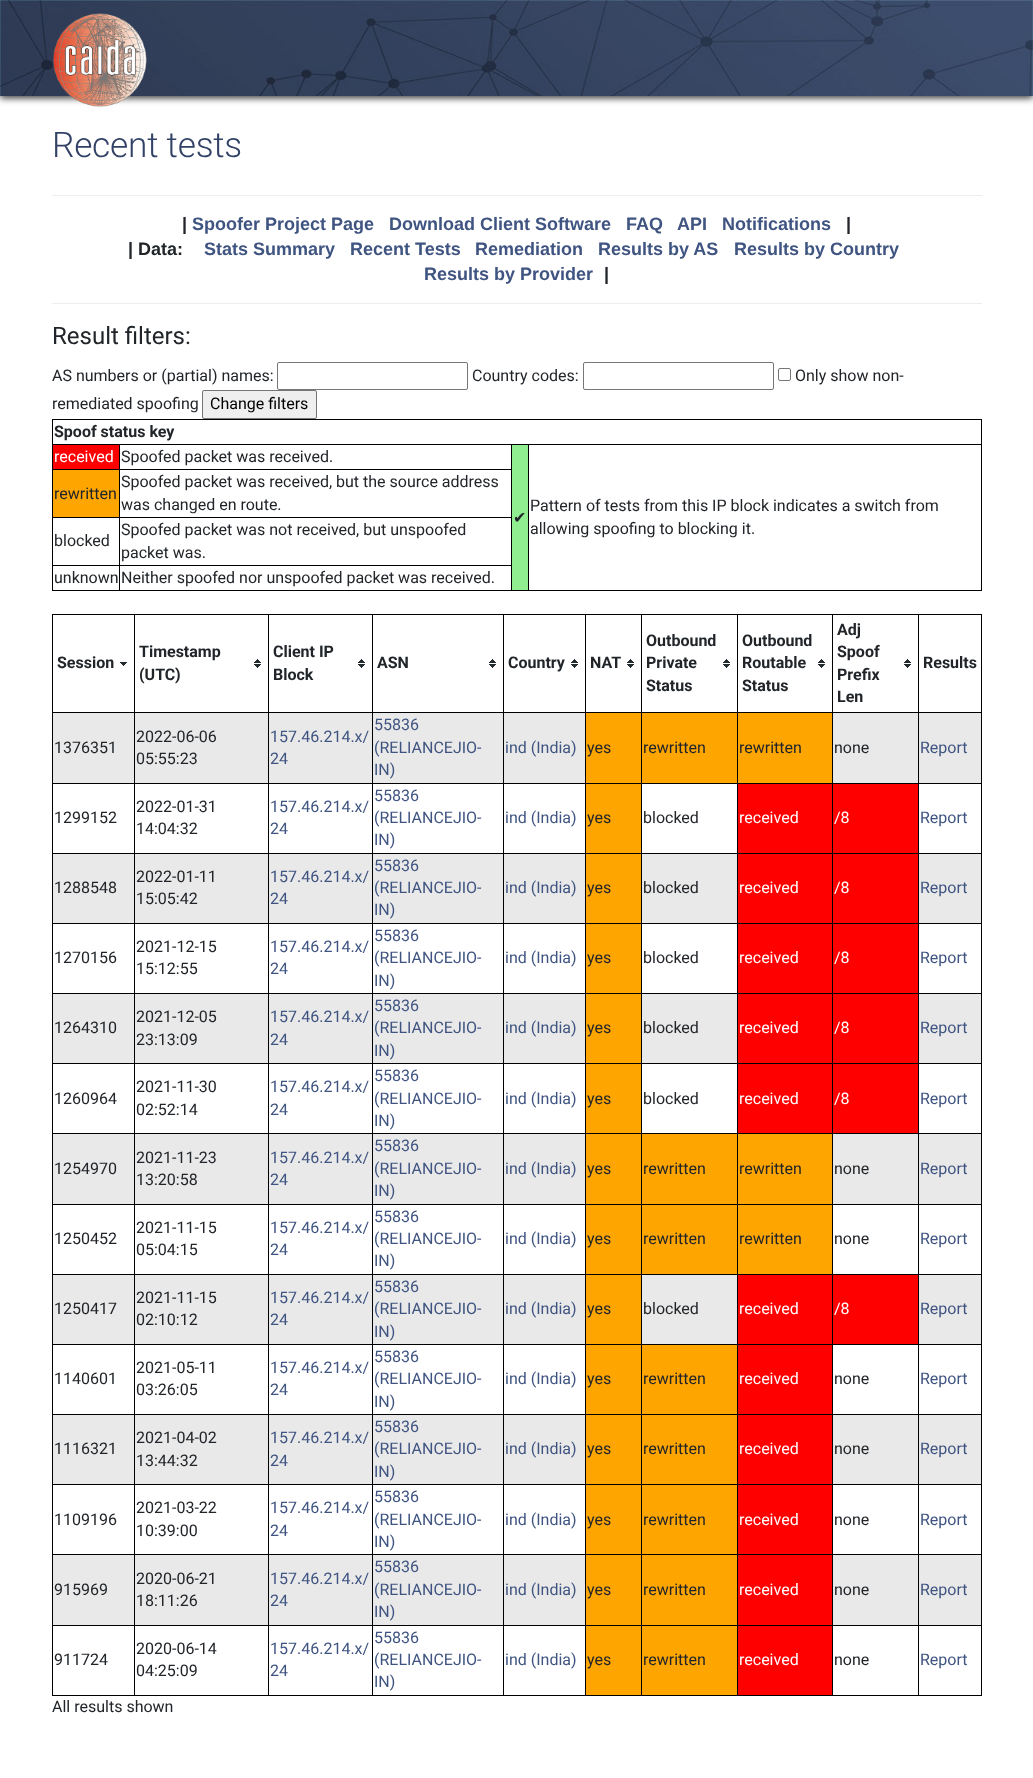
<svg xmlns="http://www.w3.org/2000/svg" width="1033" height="1778">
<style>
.a{font:300 35.25px Roboto;letter-spacing:-0.25px;fill:#324267}
.b{font:bold 18px Liberation Sans;fill:#212529}
.c{font:bold 18px Liberation Sans;fill:#3f5481}
.d{font:24px Roboto;fill:#212529}
.e{font:16px Roboto;fill:#212529}
.f{font:16px Roboto;fill:#000}
.g{font:bold 16px Roboto;fill:#212529}
.h{font:16px Roboto;fill:#fff}
.i{font:16px DejaVu Sans;fill:#212529}
.j{font:16px Roboto;fill:#3f5481}
</style>
<rect width="100%" height="100%" fill="#fff"/>
<path fill="#333" filter="blur(3.5px)" d="M0 2h1033v96H0z"/>
<image href="1.png" x="0" y="0" width="1033" height="96"/>
<image href="2.png" x="53" y="13" width="94" height="94"/>
<path fill="#eee" d="M52 195h930v1H52z"/>
<path fill="#eee" d="M52 303h930v1H52z"/>
<rect fill="none" stroke="#767676" x="277.5" y="362.5" width="190" height="27" rx="1.5"/>
<rect fill="none" stroke="#767676" x="583.5" y="362.5" width="190" height="27" rx="1.5"/>
<rect fill="none" stroke="#767676" x="778.5" y="368.5" width="12" height="12" rx="1.5"/>
<rect fill="#efefef" stroke="#767676" x="202.5" y="390.5" width="114" height="28" rx="1.5"/>
<path fill="#000" d="M52 419h930v1H52z"/>
<path fill="#000" d="M981 419h1v172H981z"/>
<path fill="#000" d="M52 590h930v1H52z"/>
<path fill="#000" d="M52 419h1v172H52z"/>
<path fill="#f00" d="M53 445h66v24H53z"/>
<path fill="#000" d="M528 444h454v1H528z"/>
<path fill="#000" d="M528 444h1v147H528z"/>
<path fill="#000" d="M511 444h18v1H511z"/>
<path fill="#000" d="M119 469h393v1H119z"/>
<path fill="#000" d="M119 517h393v1H119z"/>
<path fill="#000" d="M119 565h393v1H119z"/>
<path fill="#000" d="M511 444h1v147H511z"/>
<path fill="#000" d="M119 444h393v1H119z"/>
<path fill="#000" d="M119 565h1v26H119z"/>
<path fill="#000" d="M52 565h68v1H52z"/>
<path fill="#000" d="M119 517h1v49H119z"/>
<path fill="#000" d="M52 517h68v1H52z"/>
<path fill="#000" d="M119 469h1v49H119z"/>
<path fill="#000" d="M52 469h68v1H52z"/>
<path fill="#000" d="M119 444h1v26H119z"/>
<path fill="#000" d="M52 444h68v1H52z"/>
<path fill="#90ee90" d="M512 445h16v145H512z"/>
<path fill="#ffa500" d="M53 470h66v47H53z"/>
<path fill="#000" d="M52 614h930v1H52z"/>
<path fill="#000" d="M981 614h1v1082H981z"/>
<path fill="#000" d="M52 1695h930v1H52z"/>
<path fill="#000" d="M52 614h1v1082H52z"/>
<image href="3.png" x="120" y="662" width="7" height="4"/>
<image href="4.png" x="254" y="659" width="7" height="9"/>
<path fill="#000" d="M918 712h64v1H918z"/>
<path fill="#000" d="M918 783h64v1H918z"/>
<path fill="#000" d="M918 853h64v1H918z"/>
<path fill="#000" d="M918 923h64v1H918z"/>
<path fill="#000" d="M918 993h64v1H918z"/>
<path fill="#000" d="M918 1063h64v1H918z"/>
<path fill="#000" d="M918 1133h64v1H918z"/>
<path fill="#000" d="M918 1204h64v1H918z"/>
<path fill="#000" d="M918 1274h64v1H918z"/>
<path fill="#000" d="M918 1344h64v1H918z"/>
<path fill="#000" d="M918 1414h64v1H918z"/>
<path fill="#000" d="M918 1484h64v1H918z"/>
<path fill="#000" d="M918 1554h64v1H918z"/>
<path fill="#000" d="M918 1625h64v1H918z"/>
<path fill="#000" d="M918 1625h1v71H918z"/>
<path fill="#000" d="M832 1625h87v1H832z"/>
<path fill="#000" d="M918 1554h1v72H918z"/>
<path fill="#000" d="M832 1554h87v1H832z"/>
<path fill="#000" d="M918 1484h1v71H918z"/>
<path fill="#000" d="M832 1484h87v1H832z"/>
<path fill="#000" d="M918 1414h1v71H918z"/>
<path fill="#000" d="M832 1414h87v1H832z"/>
<path fill="#000" d="M918 1344h1v71H918z"/>
<path fill="#000" d="M832 1344h87v1H832z"/>
<path fill="#000" d="M918 1274h1v71H918z"/>
<path fill="#000" d="M832 1274h87v1H832z"/>
<path fill="#000" d="M918 1204h1v71H918z"/>
<path fill="#000" d="M832 1204h87v1H832z"/>
<path fill="#000" d="M918 1133h1v72H918z"/>
<path fill="#000" d="M832 1133h87v1H832z"/>
<path fill="#000" d="M918 1063h1v71H918z"/>
<path fill="#000" d="M832 1063h87v1H832z"/>
<path fill="#000" d="M918 993h1v71H918z"/>
<path fill="#000" d="M832 993h87v1H832z"/>
<path fill="#000" d="M918 923h1v71H918z"/>
<path fill="#000" d="M832 923h87v1H832z"/>
<path fill="#000" d="M918 853h1v71H918z"/>
<path fill="#000" d="M832 853h87v1H832z"/>
<path fill="#000" d="M918 783h1v71H918z"/>
<path fill="#000" d="M832 783h87v1H832z"/>
<path fill="#000" d="M918 712h1v72H918z"/>
<path fill="#000" d="M832 712h87v1H832z"/>
<path fill="#000" d="M832 1625h1v71H832z"/>
<path fill="#000" d="M737 1625h96v1H737z"/>
<path fill="#000" d="M832 1554h1v72H832z"/>
<path fill="#000" d="M737 1554h96v1H737z"/>
<path fill="#000" d="M832 1484h1v71H832z"/>
<path fill="#000" d="M737 1484h96v1H737z"/>
<path fill="#000" d="M832 1414h1v71H832z"/>
<path fill="#000" d="M737 1414h96v1H737z"/>
<path fill="#000" d="M832 1344h1v71H832z"/>
<path fill="#000" d="M737 1344h96v1H737z"/>
<path fill="#000" d="M832 1274h1v71H832z"/>
<path fill="#000" d="M737 1274h96v1H737z"/>
<path fill="#000" d="M832 1204h1v71H832z"/>
<path fill="#000" d="M737 1204h96v1H737z"/>
<path fill="#000" d="M832 1133h1v72H832z"/>
<path fill="#000" d="M737 1133h96v1H737z"/>
<path fill="#000" d="M832 1063h1v71H832z"/>
<path fill="#000" d="M737 1063h96v1H737z"/>
<path fill="#000" d="M832 993h1v71H832z"/>
<path fill="#000" d="M737 993h96v1H737z"/>
<path fill="#000" d="M832 923h1v71H832z"/>
<path fill="#000" d="M737 923h96v1H737z"/>
<path fill="#000" d="M832 853h1v71H832z"/>
<path fill="#000" d="M737 853h96v1H737z"/>
<path fill="#000" d="M832 783h1v71H832z"/>
<path fill="#000" d="M737 783h96v1H737z"/>
<path fill="#000" d="M832 712h1v72H832z"/>
<path fill="#000" d="M737 712h96v1H737z"/>
<path fill="#000" d="M737 1625h1v71H737z"/>
<path fill="#000" d="M641 1625h97v1H641z"/>
<path fill="#000" d="M737 1554h1v72H737z"/>
<path fill="#000" d="M641 1554h97v1H641z"/>
<path fill="#000" d="M737 1484h1v71H737z"/>
<path fill="#000" d="M641 1484h97v1H641z"/>
<path fill="#000" d="M737 1414h1v71H737z"/>
<path fill="#000" d="M641 1414h97v1H641z"/>
<path fill="#000" d="M737 1344h1v71H737z"/>
<path fill="#000" d="M641 1344h97v1H641z"/>
<path fill="#000" d="M737 1274h1v71H737z"/>
<path fill="#000" d="M641 1274h97v1H641z"/>
<path fill="#000" d="M737 1204h1v71H737z"/>
<path fill="#000" d="M641 1204h97v1H641z"/>
<path fill="#000" d="M737 1133h1v72H737z"/>
<path fill="#000" d="M641 1133h97v1H641z"/>
<path fill="#000" d="M737 1063h1v71H737z"/>
<path fill="#000" d="M641 1063h97v1H641z"/>
<path fill="#000" d="M737 993h1v71H737z"/>
<path fill="#000" d="M641 993h97v1H641z"/>
<path fill="#000" d="M737 923h1v71H737z"/>
<path fill="#000" d="M641 923h97v1H641z"/>
<path fill="#000" d="M737 853h1v71H737z"/>
<path fill="#000" d="M641 853h97v1H641z"/>
<path fill="#000" d="M737 783h1v71H737z"/>
<path fill="#000" d="M641 783h97v1H641z"/>
<path fill="#000" d="M737 712h1v72H737z"/>
<path fill="#000" d="M641 712h97v1H641z"/>
<path fill="#000" d="M641 1625h1v71H641z"/>
<path fill="#000" d="M585 1625h57v1H585z"/>
<path fill="#000" d="M641 1554h1v72H641z"/>
<path fill="#000" d="M585 1554h57v1H585z"/>
<path fill="#000" d="M641 1484h1v71H641z"/>
<path fill="#000" d="M585 1484h57v1H585z"/>
<path fill="#000" d="M641 1414h1v71H641z"/>
<path fill="#000" d="M585 1414h57v1H585z"/>
<path fill="#000" d="M641 1344h1v71H641z"/>
<path fill="#000" d="M585 1344h57v1H585z"/>
<path fill="#000" d="M641 1274h1v71H641z"/>
<path fill="#000" d="M585 1274h57v1H585z"/>
<path fill="#000" d="M641 1204h1v71H641z"/>
<path fill="#000" d="M585 1204h57v1H585z"/>
<path fill="#000" d="M641 1133h1v72H641z"/>
<path fill="#000" d="M585 1133h57v1H585z"/>
<path fill="#000" d="M641 1063h1v71H641z"/>
<path fill="#000" d="M585 1063h57v1H585z"/>
<path fill="#000" d="M641 993h1v71H641z"/>
<path fill="#000" d="M585 993h57v1H585z"/>
<path fill="#000" d="M641 923h1v71H641z"/>
<path fill="#000" d="M585 923h57v1H585z"/>
<path fill="#000" d="M641 853h1v71H641z"/>
<path fill="#000" d="M585 853h57v1H585z"/>
<path fill="#000" d="M641 783h1v71H641z"/>
<path fill="#000" d="M585 783h57v1H585z"/>
<path fill="#000" d="M641 712h1v72H641z"/>
<path fill="#000" d="M585 712h57v1H585z"/>
<path fill="#000" d="M585 1625h1v71H585z"/>
<path fill="#000" d="M503 1625h83v1H503z"/>
<path fill="#000" d="M585 1554h1v72H585z"/>
<path fill="#000" d="M503 1554h83v1H503z"/>
<path fill="#000" d="M585 1484h1v71H585z"/>
<path fill="#000" d="M503 1484h83v1H503z"/>
<path fill="#000" d="M585 1414h1v71H585z"/>
<path fill="#000" d="M503 1414h83v1H503z"/>
<path fill="#000" d="M585 1344h1v71H585z"/>
<path fill="#000" d="M503 1344h83v1H503z"/>
<path fill="#000" d="M585 1274h1v71H585z"/>
<path fill="#000" d="M503 1274h83v1H503z"/>
<path fill="#000" d="M585 1204h1v71H585z"/>
<path fill="#000" d="M503 1204h83v1H503z"/>
<path fill="#000" d="M585 1133h1v72H585z"/>
<path fill="#000" d="M503 1133h83v1H503z"/>
<path fill="#000" d="M585 1063h1v71H585z"/>
<path fill="#000" d="M503 1063h83v1H503z"/>
<path fill="#000" d="M585 993h1v71H585z"/>
<path fill="#000" d="M503 993h83v1H503z"/>
<path fill="#000" d="M585 923h1v71H585z"/>
<path fill="#000" d="M503 923h83v1H503z"/>
<path fill="#000" d="M585 853h1v71H585z"/>
<path fill="#000" d="M503 853h83v1H503z"/>
<path fill="#000" d="M585 783h1v71H585z"/>
<path fill="#000" d="M503 783h83v1H503z"/>
<path fill="#000" d="M585 712h1v72H585z"/>
<path fill="#000" d="M503 712h83v1H503z"/>
<path fill="#000" d="M503 1625h1v71H503z"/>
<path fill="#000" d="M372 1625h132v1H372z"/>
<path fill="#000" d="M503 1554h1v72H503z"/>
<path fill="#000" d="M372 1554h132v1H372z"/>
<path fill="#000" d="M503 1484h1v71H503z"/>
<path fill="#000" d="M372 1484h132v1H372z"/>
<path fill="#000" d="M503 1414h1v71H503z"/>
<path fill="#000" d="M372 1414h132v1H372z"/>
<path fill="#000" d="M503 1344h1v71H503z"/>
<path fill="#000" d="M372 1344h132v1H372z"/>
<path fill="#000" d="M503 1274h1v71H503z"/>
<path fill="#000" d="M372 1274h132v1H372z"/>
<path fill="#000" d="M503 1204h1v71H503z"/>
<path fill="#000" d="M372 1204h132v1H372z"/>
<path fill="#000" d="M503 1133h1v72H503z"/>
<path fill="#000" d="M372 1133h132v1H372z"/>
<path fill="#000" d="M503 1063h1v71H503z"/>
<path fill="#000" d="M372 1063h132v1H372z"/>
<path fill="#000" d="M503 993h1v71H503z"/>
<path fill="#000" d="M372 993h132v1H372z"/>
<path fill="#000" d="M503 923h1v71H503z"/>
<path fill="#000" d="M372 923h132v1H372z"/>
<path fill="#000" d="M503 853h1v71H503z"/>
<path fill="#000" d="M372 853h132v1H372z"/>
<path fill="#000" d="M503 783h1v71H503z"/>
<path fill="#000" d="M372 783h132v1H372z"/>
<path fill="#000" d="M503 712h1v72H503z"/>
<path fill="#000" d="M372 712h132v1H372z"/>
<path fill="#000" d="M372 1625h1v71H372z"/>
<path fill="#000" d="M268 1625h105v1H268z"/>
<path fill="#000" d="M372 1554h1v72H372z"/>
<path fill="#000" d="M268 1554h105v1H268z"/>
<path fill="#000" d="M372 1484h1v71H372z"/>
<path fill="#000" d="M268 1484h105v1H268z"/>
<path fill="#000" d="M372 1414h1v71H372z"/>
<path fill="#000" d="M268 1414h105v1H268z"/>
<path fill="#000" d="M372 1344h1v71H372z"/>
<path fill="#000" d="M268 1344h105v1H268z"/>
<path fill="#000" d="M372 1274h1v71H372z"/>
<path fill="#000" d="M268 1274h105v1H268z"/>
<path fill="#000" d="M372 1204h1v71H372z"/>
<path fill="#000" d="M268 1204h105v1H268z"/>
<path fill="#000" d="M372 1133h1v72H372z"/>
<path fill="#000" d="M268 1133h105v1H268z"/>
<path fill="#000" d="M372 1063h1v71H372z"/>
<path fill="#000" d="M268 1063h105v1H268z"/>
<path fill="#000" d="M372 993h1v71H372z"/>
<path fill="#000" d="M268 993h105v1H268z"/>
<path fill="#000" d="M372 923h1v71H372z"/>
<path fill="#000" d="M268 923h105v1H268z"/>
<path fill="#000" d="M372 853h1v71H372z"/>
<path fill="#000" d="M268 853h105v1H268z"/>
<path fill="#000" d="M372 783h1v71H372z"/>
<path fill="#000" d="M268 783h105v1H268z"/>
<path fill="#000" d="M372 712h1v72H372z"/>
<path fill="#000" d="M268 712h105v1H268z"/>
<path fill="#000" d="M268 1625h1v71H268z"/>
<path fill="#000" d="M134 1625h135v1H134z"/>
<path fill="#000" d="M268 1554h1v72H268z"/>
<path fill="#000" d="M134 1554h135v1H134z"/>
<path fill="#000" d="M268 1484h1v71H268z"/>
<path fill="#000" d="M134 1484h135v1H134z"/>
<path fill="#000" d="M268 1414h1v71H268z"/>
<path fill="#000" d="M134 1414h135v1H134z"/>
<path fill="#000" d="M268 1344h1v71H268z"/>
<path fill="#000" d="M134 1344h135v1H134z"/>
<path fill="#000" d="M268 1274h1v71H268z"/>
<path fill="#000" d="M134 1274h135v1H134z"/>
<path fill="#000" d="M268 1204h1v71H268z"/>
<path fill="#000" d="M134 1204h135v1H134z"/>
<path fill="#000" d="M268 1133h1v72H268z"/>
<path fill="#000" d="M134 1133h135v1H134z"/>
<path fill="#000" d="M268 1063h1v71H268z"/>
<path fill="#000" d="M134 1063h135v1H134z"/>
<path fill="#000" d="M268 993h1v71H268z"/>
<path fill="#000" d="M134 993h135v1H134z"/>
<path fill="#000" d="M268 923h1v71H268z"/>
<path fill="#000" d="M134 923h135v1H134z"/>
<path fill="#000" d="M268 853h1v71H268z"/>
<path fill="#000" d="M134 853h135v1H134z"/>
<path fill="#000" d="M268 783h1v71H268z"/>
<path fill="#000" d="M134 783h135v1H134z"/>
<path fill="#000" d="M268 712h1v72H268z"/>
<path fill="#000" d="M134 712h135v1H134z"/>
<path fill="#000" d="M134 1625h1v71H134z"/>
<path fill="#000" d="M52 1625h83v1H52z"/>
<path fill="#000" d="M134 1554h1v72H134z"/>
<path fill="#000" d="M52 1554h83v1H52z"/>
<path fill="#000" d="M134 1484h1v71H134z"/>
<path fill="#000" d="M52 1484h83v1H52z"/>
<path fill="#000" d="M134 1414h1v71H134z"/>
<path fill="#000" d="M52 1414h83v1H52z"/>
<path fill="#000" d="M134 1344h1v71H134z"/>
<path fill="#000" d="M52 1344h83v1H52z"/>
<path fill="#000" d="M134 1274h1v71H134z"/>
<path fill="#000" d="M52 1274h83v1H52z"/>
<path fill="#000" d="M134 1204h1v71H134z"/>
<path fill="#000" d="M52 1204h83v1H52z"/>
<path fill="#000" d="M134 1133h1v72H134z"/>
<path fill="#000" d="M52 1133h83v1H52z"/>
<path fill="#000" d="M134 1063h1v71H134z"/>
<path fill="#000" d="M52 1063h83v1H52z"/>
<path fill="#000" d="M134 993h1v71H134z"/>
<path fill="#000" d="M52 993h83v1H52z"/>
<path fill="#000" d="M134 923h1v71H134z"/>
<path fill="#000" d="M52 923h83v1H52z"/>
<path fill="#000" d="M134 853h1v71H134z"/>
<path fill="#000" d="M52 853h83v1H52z"/>
<path fill="#000" d="M134 783h1v71H134z"/>
<path fill="#000" d="M52 783h83v1H52z"/>
<path fill="#000" d="M134 712h1v72H134z"/>
<path fill="#000" d="M52 712h83v1H52z"/>
<path fill="#000" d="M134 614h1v99H134z"/>
<image href="4.png" x="358" y="659" width="7" height="9"/>
<path fill="#000" d="M268 614h1v99H268z"/>
<image href="4.png" x="489" y="659" width="7" height="9"/>
<path fill="#000" d="M372 614h1v99H372z"/>
<image href="4.png" x="571" y="659" width="7" height="9"/>
<path fill="#000" d="M503 614h1v99H503z"/>
<image href="4.png" x="627" y="659" width="7" height="9"/>
<path fill="#000" d="M585 614h1v99H585z"/>
<image href="4.png" x="723" y="659" width="7" height="9"/>
<path fill="#000" d="M641 614h1v99H641z"/>
<image href="4.png" x="818" y="659" width="7" height="9"/>
<path fill="#000" d="M737 614h1v99H737z"/>
<image href="4.png" x="904" y="659" width="7" height="9"/>
<path fill="#000" d="M832 614h1v99H832z"/>
<path fill="#000" d="M918 614h1v99H918z"/>
<path fill="#e9e9e9" d="M53 713h81v70H53z"/>
<path fill="#e9e9e9" d="M135 713h133v70H135z"/>
<path fill="#e9e9e9" d="M269 713h103v70H269z"/>
<path fill="#e9e9e9" d="M373 713h130v70H373z"/>
<path fill="#e9e9e9" d="M504 713h81v70H504z"/>
<path fill="#ffa500" d="M586 713h55v70H586z"/>
<path fill="#ffa500" d="M642 713h95v70H642z"/>
<path fill="#ffa500" d="M738 713h94v70H738z"/>
<path fill="#e9e9e9" d="M833 713h85v70H833z"/>
<path fill="#e9e9e9" d="M919 713h62v70H919z"/>
<path fill="#ffa500" d="M586 784h55v69H586z"/>
<path fill="#f00" d="M738 784h94v69H738z"/>
<path fill="#f00" d="M833 784h85v69H833z"/>
<path fill="#e9e9e9" d="M53 854h81v69H53z"/>
<path fill="#e9e9e9" d="M135 854h133v69H135z"/>
<path fill="#e9e9e9" d="M269 854h103v69H269z"/>
<path fill="#e9e9e9" d="M373 854h130v69H373z"/>
<path fill="#e9e9e9" d="M504 854h81v69H504z"/>
<path fill="#ffa500" d="M586 854h55v69H586z"/>
<path fill="#e9e9e9" d="M642 854h95v69H642z"/>
<path fill="#f00" d="M738 854h94v69H738z"/>
<path fill="#f00" d="M833 854h85v69H833z"/>
<path fill="#e9e9e9" d="M919 854h62v69H919z"/>
<path fill="#ffa500" d="M586 924h55v69H586z"/>
<path fill="#f00" d="M738 924h94v69H738z"/>
<path fill="#f00" d="M833 924h85v69H833z"/>
<path fill="#e9e9e9" d="M53 994h81v69H53z"/>
<path fill="#e9e9e9" d="M135 994h133v69H135z"/>
<path fill="#e9e9e9" d="M269 994h103v69H269z"/>
<path fill="#e9e9e9" d="M373 994h130v69H373z"/>
<path fill="#e9e9e9" d="M504 994h81v69H504z"/>
<path fill="#ffa500" d="M586 994h55v69H586z"/>
<path fill="#e9e9e9" d="M642 994h95v69H642z"/>
<path fill="#f00" d="M738 994h94v69H738z"/>
<path fill="#f00" d="M833 994h85v69H833z"/>
<path fill="#e9e9e9" d="M919 994h62v69H919z"/>
<path fill="#ffa500" d="M586 1064h55v69H586z"/>
<path fill="#f00" d="M738 1064h94v69H738z"/>
<path fill="#f00" d="M833 1064h85v69H833z"/>
<path fill="#e9e9e9" d="M53 1134h81v70H53z"/>
<path fill="#e9e9e9" d="M135 1134h133v70H135z"/>
<path fill="#e9e9e9" d="M269 1134h103v70H269z"/>
<path fill="#e9e9e9" d="M373 1134h130v70H373z"/>
<path fill="#e9e9e9" d="M504 1134h81v70H504z"/>
<path fill="#ffa500" d="M586 1134h55v70H586z"/>
<path fill="#ffa500" d="M642 1134h95v70H642z"/>
<path fill="#ffa500" d="M738 1134h94v70H738z"/>
<path fill="#e9e9e9" d="M833 1134h85v70H833z"/>
<path fill="#e9e9e9" d="M919 1134h62v70H919z"/>
<path fill="#ffa500" d="M586 1205h55v69H586z"/>
<path fill="#ffa500" d="M642 1205h95v69H642z"/>
<path fill="#ffa500" d="M738 1205h94v69H738z"/>
<path fill="#e9e9e9" d="M53 1275h81v69H53z"/>
<path fill="#e9e9e9" d="M135 1275h133v69H135z"/>
<path fill="#e9e9e9" d="M269 1275h103v69H269z"/>
<path fill="#e9e9e9" d="M373 1275h130v69H373z"/>
<path fill="#e9e9e9" d="M504 1275h81v69H504z"/>
<path fill="#ffa500" d="M586 1275h55v69H586z"/>
<path fill="#e9e9e9" d="M642 1275h95v69H642z"/>
<path fill="#f00" d="M738 1275h94v69H738z"/>
<path fill="#f00" d="M833 1275h85v69H833z"/>
<path fill="#e9e9e9" d="M919 1275h62v69H919z"/>
<path fill="#ffa500" d="M586 1345h55v69H586z"/>
<path fill="#ffa500" d="M642 1345h95v69H642z"/>
<path fill="#f00" d="M738 1345h94v69H738z"/>
<path fill="#e9e9e9" d="M53 1415h81v69H53z"/>
<path fill="#e9e9e9" d="M135 1415h133v69H135z"/>
<path fill="#e9e9e9" d="M269 1415h103v69H269z"/>
<path fill="#e9e9e9" d="M373 1415h130v69H373z"/>
<path fill="#e9e9e9" d="M504 1415h81v69H504z"/>
<path fill="#ffa500" d="M586 1415h55v69H586z"/>
<path fill="#ffa500" d="M642 1415h95v69H642z"/>
<path fill="#f00" d="M738 1415h94v69H738z"/>
<path fill="#e9e9e9" d="M833 1415h85v69H833z"/>
<path fill="#e9e9e9" d="M919 1415h62v69H919z"/>
<path fill="#ffa500" d="M586 1485h55v69H586z"/>
<path fill="#ffa500" d="M642 1485h95v69H642z"/>
<path fill="#f00" d="M738 1485h94v69H738z"/>
<path fill="#e9e9e9" d="M53 1555h81v70H53z"/>
<path fill="#e9e9e9" d="M135 1555h133v70H135z"/>
<path fill="#e9e9e9" d="M269 1555h103v70H269z"/>
<path fill="#e9e9e9" d="M373 1555h130v70H373z"/>
<path fill="#e9e9e9" d="M504 1555h81v70H504z"/>
<path fill="#ffa500" d="M586 1555h55v70H586z"/>
<path fill="#ffa500" d="M642 1555h95v70H642z"/>
<path fill="#f00" d="M738 1555h94v70H738z"/>
<path fill="#e9e9e9" d="M833 1555h85v70H833z"/>
<path fill="#e9e9e9" d="M919 1555h62v70H919z"/>
<path fill="#ffa500" d="M586 1626h55v69H586z"/>
<path fill="#ffa500" d="M642 1626h95v69H642z"/>
<path fill="#f00" d="M738 1626h94v69H738z"/>
<text class="a" x="52" y="157">Recent tests</text>
<text class="b" x="182" y="230">|</text>
<text class="c" x="192" y="230">Spoofer Project Page</text>
<text class="c" x="389" y="230">Download Client Software</text>
<text class="c" x="626" y="230">FAQ</text>
<text class="c" x="677" y="230">API</text>
<text class="c" x="722" y="230">Notifications</text>
<text class="b" x="846" y="230">|</text>
<text class="b" x="128" y="255">| Data:</text>
<text class="c" x="204" y="255">Stats Summary</text>
<text class="c" x="350" y="255">Recent Tests</text>
<text class="c" x="475" y="255">Remediation</text>
<text class="c" x="598" y="255">Results by AS</text>
<text class="c" x="734" y="255">Results by Country</text>
<text class="c" x="424" y="280">Results by Provider</text>
<text class="b" x="604" y="280">|</text>
<text class="d" x="52" y="344">Result filters:</text>
<text class="e" x="52" y="381">AS numbers or (partial) names:</text>
<text class="e" x="472" y="381">Country codes:</text>
<text class="e" x="795" y="381">Only show non-</text>
<text class="e" x="52" y="409">remediated spoofing</text>
<text class="f" x="210" y="409">Change filters</text>
<text class="g" x="54" y="437">Spoof status key</text>
<text class="h" x="54" y="462">received</text>
<text class="e" x="121" y="462">Spoofed packet was received.</text>
<text class="i" x="513" y="523">✔</text>
<text class="e" x="530" y="511">Pattern of tests from this IP block indicates a switch from</text>
<text class="e" x="530" y="534">allowing spoofing to blocking it.</text>
<text class="e" x="54" y="499">rewritten</text>
<text class="e" x="121" y="487">Spoofed packet was received, but the source address</text>
<text class="e" x="121" y="510">was changed en route.</text>
<text class="e" x="54" y="546">blocked</text>
<text class="e" x="121" y="535">Spoofed packet was not received, but unspoofed</text>
<text class="e" x="121" y="558">packet was.</text>
<text class="e" x="54" y="583">unknown</text>
<text class="e" x="121" y="583">Neither spoofed nor unspoofed packet was received.</text>
<text class="g" x="57" y="668">Session</text>
<text class="g" x="139" y="657">Timestamp</text>
<text class="g" x="139" y="680">(UTC)</text>
<text class="g" x="273" y="657">Client IP</text>
<text class="g" x="273" y="680">Block</text>
<text class="g" x="377" y="668">ASN</text>
<text class="g" x="508" y="668">Country</text>
<text class="g" x="590" y="668">NAT</text>
<text class="g" x="646" y="646">Outbound</text>
<text class="g" x="646" y="668">Private</text>
<text class="g" x="646" y="691">Status</text>
<text class="g" x="742" y="646">Outbound</text>
<text class="g" x="742" y="668">Routable</text>
<text class="g" x="742" y="691">Status</text>
<text class="g" x="837" y="635">Adj</text>
<text class="g" x="837" y="657">Spoof</text>
<text class="g" x="837" y="680">Prefix</text>
<text class="g" x="837" y="702">Len</text>
<text class="g" x="923" y="668">Results</text>
<text class="e" x="54" y="753">1376351</text>
<text class="e" x="136" y="742">2022-06-06</text>
<text class="e" x="136" y="764">05:55:23</text>
<text class="j" x="270" y="742">157.46.214.x/</text>
<text class="j" x="270" y="764">24</text>
<text class="j" x="374" y="730">55836</text>
<text class="j" x="374" y="753">(RELIANCEJIO-</text>
<text class="j" x="374" y="775">IN)</text>
<text class="j" x="505" y="753">ind (India)</text>
<text class="e" x="587" y="753">yes</text>
<text class="e" x="643" y="753">rewritten</text>
<text class="e" x="739" y="753">rewritten</text>
<text class="e" x="834" y="753">none</text>
<text class="j" x="920" y="753">Report</text>
<text class="e" x="54" y="823">1299152</text>
<text class="e" x="136" y="812">2022-01-31</text>
<text class="e" x="136" y="834">14:04:32</text>
<text class="j" x="270" y="812">157.46.214.x/</text>
<text class="j" x="270" y="834">24</text>
<text class="j" x="374" y="801">55836</text>
<text class="j" x="374" y="823">(RELIANCEJIO-</text>
<text class="j" x="374" y="845">IN)</text>
<text class="j" x="505" y="823">ind (India)</text>
<text class="e" x="587" y="823">yes</text>
<text class="e" x="643" y="823">blocked</text>
<text class="h" x="739" y="823">received</text>
<text class="h" x="834" y="823">/8</text>
<text class="j" x="920" y="823">Report</text>
<text class="e" x="54" y="893">1288548</text>
<text class="e" x="136" y="882">2022-01-11</text>
<text class="e" x="136" y="904">15:05:42</text>
<text class="j" x="270" y="882">157.46.214.x/</text>
<text class="j" x="270" y="904">24</text>
<text class="j" x="374" y="871">55836</text>
<text class="j" x="374" y="893">(RELIANCEJIO-</text>
<text class="j" x="374" y="915">IN)</text>
<text class="j" x="505" y="893">ind (India)</text>
<text class="e" x="587" y="893">yes</text>
<text class="e" x="643" y="893">blocked</text>
<text class="h" x="739" y="893">received</text>
<text class="h" x="834" y="893">/8</text>
<text class="j" x="920" y="893">Report</text>
<text class="e" x="54" y="963">1270156</text>
<text class="e" x="136" y="952">2021-12-15</text>
<text class="e" x="136" y="974">15:12:55</text>
<text class="j" x="270" y="952">157.46.214.x/</text>
<text class="j" x="270" y="974">24</text>
<text class="j" x="374" y="941">55836</text>
<text class="j" x="374" y="963">(RELIANCEJIO-</text>
<text class="j" x="374" y="986">IN)</text>
<text class="j" x="505" y="963">ind (India)</text>
<text class="e" x="587" y="963">yes</text>
<text class="e" x="643" y="963">blocked</text>
<text class="h" x="739" y="963">received</text>
<text class="h" x="834" y="963">/8</text>
<text class="j" x="920" y="963">Report</text>
<text class="e" x="54" y="1033">1264310</text>
<text class="e" x="136" y="1022">2021-12-05</text>
<text class="e" x="136" y="1045">23:13:09</text>
<text class="j" x="270" y="1022">157.46.214.x/</text>
<text class="j" x="270" y="1045">24</text>
<text class="j" x="374" y="1011">55836</text>
<text class="j" x="374" y="1033">(RELIANCEJIO-</text>
<text class="j" x="374" y="1056">IN)</text>
<text class="j" x="505" y="1033">ind (India)</text>
<text class="e" x="587" y="1033">yes</text>
<text class="e" x="643" y="1033">blocked</text>
<text class="h" x="739" y="1033">received</text>
<text class="h" x="834" y="1033">/8</text>
<text class="j" x="920" y="1033">Report</text>
<text class="e" x="54" y="1104">1260964</text>
<text class="e" x="136" y="1092">2021-11-30</text>
<text class="e" x="136" y="1115">02:52:14</text>
<text class="j" x="270" y="1092">157.46.214.x/</text>
<text class="j" x="270" y="1115">24</text>
<text class="j" x="374" y="1081">55836</text>
<text class="j" x="374" y="1104">(RELIANCEJIO-</text>
<text class="j" x="374" y="1126">IN)</text>
<text class="j" x="505" y="1104">ind (India)</text>
<text class="e" x="587" y="1104">yes</text>
<text class="e" x="643" y="1104">blocked</text>
<text class="h" x="739" y="1104">received</text>
<text class="h" x="834" y="1104">/8</text>
<text class="j" x="920" y="1104">Report</text>
<text class="e" x="54" y="1174">1254970</text>
<text class="e" x="136" y="1163">2021-11-23</text>
<text class="e" x="136" y="1185">13:20:58</text>
<text class="j" x="270" y="1163">157.46.214.x/</text>
<text class="j" x="270" y="1185">24</text>
<text class="j" x="374" y="1151">55836</text>
<text class="j" x="374" y="1174">(RELIANCEJIO-</text>
<text class="j" x="374" y="1196">IN)</text>
<text class="j" x="505" y="1174">ind (India)</text>
<text class="e" x="587" y="1174">yes</text>
<text class="e" x="643" y="1174">rewritten</text>
<text class="e" x="739" y="1174">rewritten</text>
<text class="e" x="834" y="1174">none</text>
<text class="j" x="920" y="1174">Report</text>
<text class="e" x="54" y="1244">1250452</text>
<text class="e" x="136" y="1233">2021-11-15</text>
<text class="e" x="136" y="1255">05:04:15</text>
<text class="j" x="270" y="1233">157.46.214.x/</text>
<text class="j" x="270" y="1255">24</text>
<text class="j" x="374" y="1222">55836</text>
<text class="j" x="374" y="1244">(RELIANCEJIO-</text>
<text class="j" x="374" y="1266">IN)</text>
<text class="j" x="505" y="1244">ind (India)</text>
<text class="e" x="587" y="1244">yes</text>
<text class="e" x="643" y="1244">rewritten</text>
<text class="e" x="739" y="1244">rewritten</text>
<text class="e" x="834" y="1244">none</text>
<text class="j" x="920" y="1244">Report</text>
<text class="e" x="54" y="1314">1250417</text>
<text class="e" x="136" y="1303">2021-11-15</text>
<text class="e" x="136" y="1325">02:10:12</text>
<text class="j" x="270" y="1303">157.46.214.x/</text>
<text class="j" x="270" y="1325">24</text>
<text class="j" x="374" y="1292">55836</text>
<text class="j" x="374" y="1314">(RELIANCEJIO-</text>
<text class="j" x="374" y="1337">IN)</text>
<text class="j" x="505" y="1314">ind (India)</text>
<text class="e" x="587" y="1314">yes</text>
<text class="e" x="643" y="1314">blocked</text>
<text class="h" x="739" y="1314">received</text>
<text class="h" x="834" y="1314">/8</text>
<text class="j" x="920" y="1314">Report</text>
<text class="e" x="54" y="1384">1140601</text>
<text class="e" x="136" y="1373">2021-05-11</text>
<text class="e" x="136" y="1395">03:26:05</text>
<text class="j" x="270" y="1373">157.46.214.x/</text>
<text class="j" x="270" y="1395">24</text>
<text class="j" x="374" y="1362">55836</text>
<text class="j" x="374" y="1384">(RELIANCEJIO-</text>
<text class="j" x="374" y="1407">IN)</text>
<text class="j" x="505" y="1384">ind (India)</text>
<text class="e" x="587" y="1384">yes</text>
<text class="e" x="643" y="1384">rewritten</text>
<text class="h" x="739" y="1384">received</text>
<text class="e" x="834" y="1384">none</text>
<text class="j" x="920" y="1384">Report</text>
<text class="e" x="54" y="1454">1116321</text>
<text class="e" x="136" y="1443">2021-04-02</text>
<text class="e" x="136" y="1466">13:44:32</text>
<text class="j" x="270" y="1443">157.46.214.x/</text>
<text class="j" x="270" y="1466">24</text>
<text class="j" x="374" y="1432">55836</text>
<text class="j" x="374" y="1454">(RELIANCEJIO-</text>
<text class="j" x="374" y="1477">IN)</text>
<text class="j" x="505" y="1454">ind (India)</text>
<text class="e" x="587" y="1454">yes</text>
<text class="e" x="643" y="1454">rewritten</text>
<text class="h" x="739" y="1454">received</text>
<text class="e" x="834" y="1454">none</text>
<text class="j" x="920" y="1454">Report</text>
<text class="e" x="54" y="1525">1109196</text>
<text class="e" x="136" y="1513">2021-03-22</text>
<text class="e" x="136" y="1536">10:39:00</text>
<text class="j" x="270" y="1513">157.46.214.x/</text>
<text class="j" x="270" y="1536">24</text>
<text class="j" x="374" y="1502">55836</text>
<text class="j" x="374" y="1525">(RELIANCEJIO-</text>
<text class="j" x="374" y="1547">IN)</text>
<text class="j" x="505" y="1525">ind (India)</text>
<text class="e" x="587" y="1525">yes</text>
<text class="e" x="643" y="1525">rewritten</text>
<text class="h" x="739" y="1525">received</text>
<text class="e" x="834" y="1525">none</text>
<text class="j" x="920" y="1525">Report</text>
<text class="e" x="54" y="1595">915969</text>
<text class="e" x="136" y="1584">2020-06-21</text>
<text class="e" x="136" y="1606">18:11:26</text>
<text class="j" x="270" y="1584">157.46.214.x/</text>
<text class="j" x="270" y="1606">24</text>
<text class="j" x="374" y="1572">55836</text>
<text class="j" x="374" y="1595">(RELIANCEJIO-</text>
<text class="j" x="374" y="1617">IN)</text>
<text class="j" x="505" y="1595">ind (India)</text>
<text class="e" x="587" y="1595">yes</text>
<text class="e" x="643" y="1595">rewritten</text>
<text class="h" x="739" y="1595">received</text>
<text class="e" x="834" y="1595">none</text>
<text class="j" x="920" y="1595">Report</text>
<text class="e" x="54" y="1665">911724</text>
<text class="e" x="136" y="1654">2020-06-14</text>
<text class="e" x="136" y="1676">04:25:09</text>
<text class="j" x="270" y="1654">157.46.214.x/</text>
<text class="j" x="270" y="1676">24</text>
<text class="j" x="374" y="1643">55836</text>
<text class="j" x="374" y="1665">(RELIANCEJIO-</text>
<text class="j" x="374" y="1687">IN)</text>
<text class="j" x="505" y="1665">ind (India)</text>
<text class="e" x="587" y="1665">yes</text>
<text class="e" x="643" y="1665">rewritten</text>
<text class="h" x="739" y="1665">received</text>
<text class="e" x="834" y="1665">none</text>
<text class="j" x="920" y="1665">Report</text>
<text class="e" x="52" y="1712">All results shown</text>
</svg>
